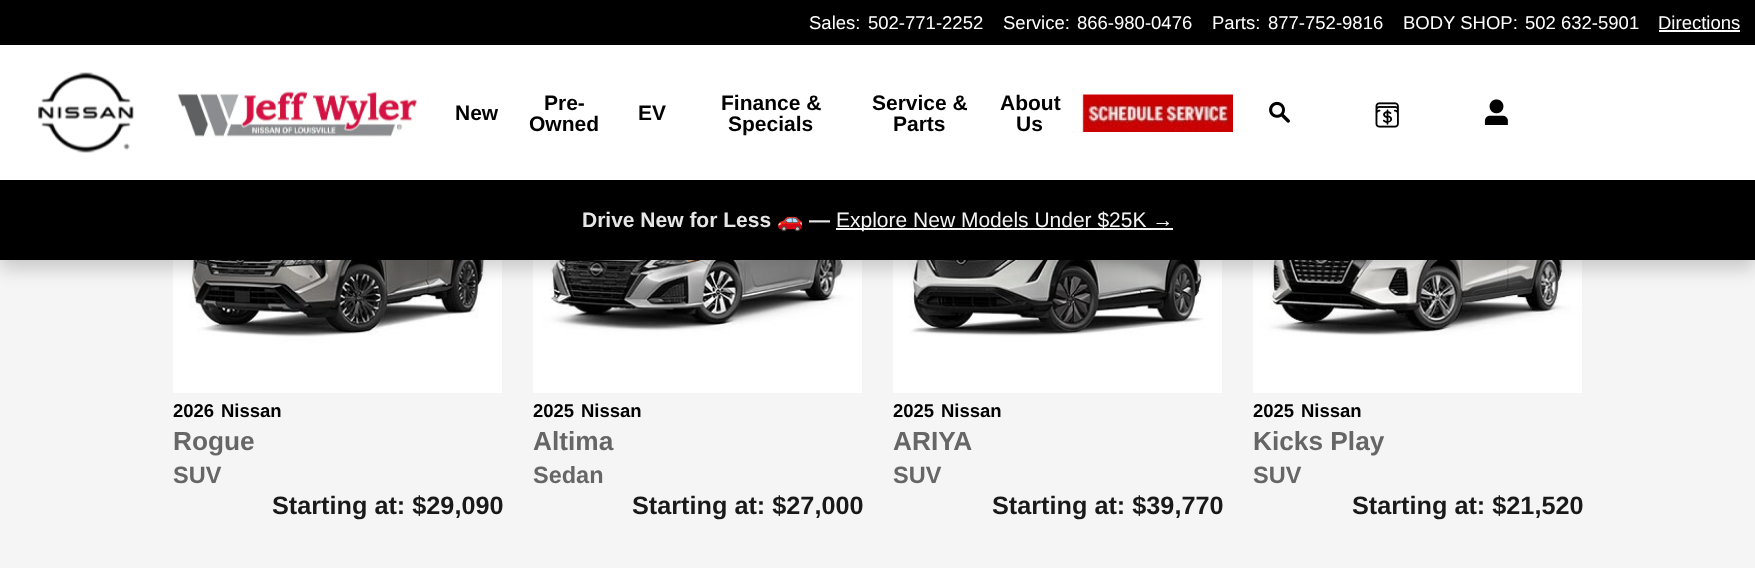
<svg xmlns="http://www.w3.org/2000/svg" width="1755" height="568">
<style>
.a{font:18.5px Liberation Sans;fill:#fff}
.b{font:bold 21px Liberation Sans;fill:#000}
.c{font:bold 21px Liberation Sans;fill:#e6e6e6}
.d{font:bold 21px Noto Color Emoji;fill:#e6e6e6}
.e{font:21px Liberation Sans;fill:#f3f3f3}
.f{font:bold 18.5px Liberation Sans;fill:#000}
.g{font:bold 26.25px Liberation Sans;fill:#666}
.h{font:bold 23.5px Liberation Sans;fill:#666}
.i{font:bold 25.25px Liberation Sans;fill:#191919}
</style>
<rect width="100%" height="100%" fill="#f5f5f5"/>
<image href="7.png" x="173" y="260" width="329" height="133"/>
<image href="8.png" x="533" y="260" width="329" height="133"/>
<image href="9.png" x="893" y="260" width="329" height="133"/>
<image href="10.png" x="1253" y="260" width="329" height="133"/>
<path fill="#0000002e" filter="blur(9px)" d="M0 9h1755v260H0z"/>
<path fill="#fff" d="M0 45h1755v135H0z"/>
<path fill="#000" d="M0 0h1755v45H0z"/>
<path fill="#fff" d="M1659 30h81v2H1659z"/>
<image href="1.png" x="38" y="72" width="96" height="81"/>
<image href="2.png" x="177" y="91" width="241" height="46"/>
<image href="3.png" x="1082" y="94" width="151" height="38"/>
<image href="4.png" x="1269" y="101" width="21" height="22"/>
<image href="5.png" x="1375" y="102" width="24" height="26"/>
<image href="6.png" x="1484" y="99" width="24" height="26"/>
<path fill="#000" d="M0 180h1755v80H0z"/>
<path fill="#f3f3f3" d="M836 228h337v2H836z"/>
<text class="a" x="809" y="29">Sales:</text>
<text class="a" x="868" y="29">502-771-2252</text>
<text class="a" x="1003" y="29">Service:</text>
<text class="a" x="1077" y="29">866-980-0476</text>
<text class="a" x="1212" y="29">Parts:</text>
<text class="a" x="1268" y="29">877-752-9816</text>
<text class="a" x="1403" y="29">BODY SHOP:</text>
<text class="a" x="1525" y="29">502 632-5901</text>
<text class="a" x="1658" y="29">Directions</text>
<text class="b" x="455" y="120">New</text>
<text class="b" x="544" y="110">Pre-</text>
<text class="b" x="529" y="131">Owned</text>
<text class="b" x="638" y="120">EV</text>
<text class="b" x="721" y="110">Finance &amp;</text>
<text class="b" x="728" y="131">Specials</text>
<text class="b" x="872" y="110">Service &amp;</text>
<text class="b" x="893" y="131">Parts</text>
<text class="b" x="1000" y="110">About</text>
<text class="b" x="1016" y="131">Us</text>
<text class="c" x="582" y="227">Drive New for Less</text>
<text class="d" x="777" y="227">🚗</text>
<text class="c" x="809" y="227">—</text>
<text class="e" x="836" y="227">Explore New Models Under $25K →</text>
<text class="f" x="173" y="417">2026</text>
<text class="f" x="221" y="417">Nissan</text>
<text class="g" x="173" y="450">Rogue</text>
<text class="h" x="173" y="483">SUV</text>
<text class="i" x="272" y="514">Starting at: $29,090</text>
<text class="f" x="533" y="417">2025</text>
<text class="f" x="581" y="417">Nissan</text>
<text class="g" x="533" y="450">Altima</text>
<text class="h" x="533" y="483">Sedan</text>
<text class="i" x="632" y="514">Starting at: $27,000</text>
<text class="f" x="893" y="417">2025</text>
<text class="f" x="941" y="417">Nissan</text>
<text class="g" x="893" y="450">ARIYA</text>
<text class="h" x="893" y="483">SUV</text>
<text class="i" x="992" y="514">Starting at: $39,770</text>
<text class="f" x="1253" y="417">2025</text>
<text class="f" x="1301" y="417">Nissan</text>
<text class="g" x="1253" y="450">Kicks Play</text>
<text class="h" x="1253" y="483">SUV</text>
<text class="i" x="1352" y="514">Starting at: $21,520</text>
</svg>
